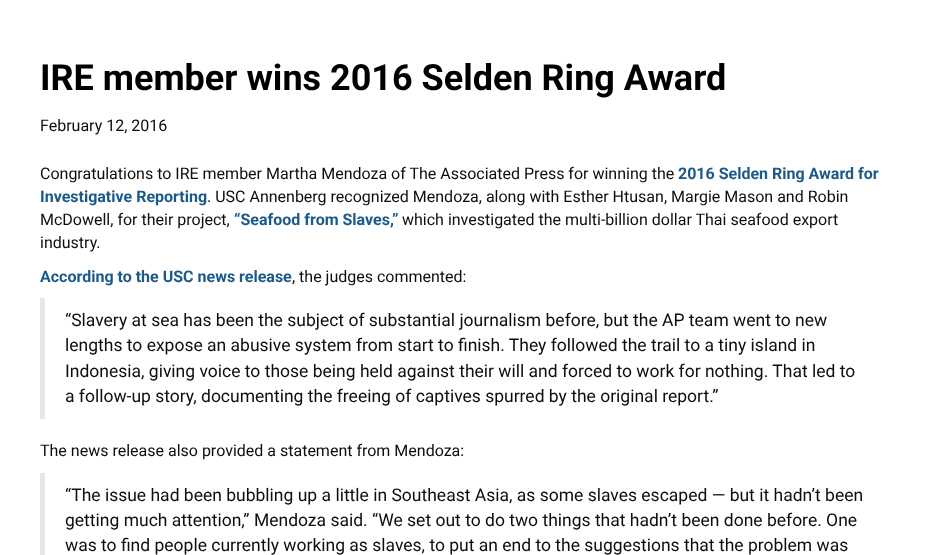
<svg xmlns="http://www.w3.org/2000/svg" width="927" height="555">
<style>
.a{font:bold 36px Roboto;fill:#000}
.b{font:16px Roboto;fill:#0f0d0a}
.c{font:bold 16px Roboto;fill:#1a5988}
.d{font:17.5px Roboto;fill:#0f0d0a}
</style>
<rect width="100%" height="100%" fill="#fff"/>
<path fill="#e6e6e6" d="M40 298h5v121H40z"/>
<path fill="#e6e6e6" d="M40 473h5v82H40z"/>
<text class="a" x="40" y="90">IRE member wins 2016 Selden Ring Award</text>
<text class="b" x="40" y="131">February 12, 2016</text>
<text class="b" x="40" y="179">Congratulations to IRE member Martha Mendoza of The Associated Press for winning the</text>
<text class="c" x="678" y="179">2016 Selden Ring Award for</text>
<text class="c" x="40" y="202">Investigative Reporting</text>
<text class="b" x="207" y="202">. USC Annenberg recognized Mendoza, along with Esther Htusan, Margie Mason and Robin</text>
<text class="b" x="40" y="225">McDowell, for their project,</text>
<text class="c" x="234" y="225">“Seafood from Slaves,”</text>
<text class="b" x="402" y="225">which investigated the multi-billion dollar Thai seafood export</text>
<text class="b" x="40" y="248">industry.</text>
<text class="c" x="40" y="282">According to the USC news release</text>
<text class="b" x="292" y="282">, the judges commented:</text>
<text class="d" x="65" y="326">“Slavery at sea has been the subject of substantial journalism before, but the AP team went to new</text>
<text class="d" x="65" y="351">lengths to expose an abusive system from start to finish. They followed the trail to a tiny island in</text>
<text class="d" x="65" y="377">Indonesia, giving voice to those being held against their will and forced to work for nothing. That led to</text>
<text class="d" x="65" y="402">a follow-up story, documenting the freeing of captives spurred by the original report.”</text>
<text class="b" x="40" y="456">The news release also provided a statement from Mendoza:</text>
<text class="d" x="65" y="501">“The issue had been bubbling up a little in Southeast Asia, as some slaves escaped — but it hadn’t been</text>
<text class="d" x="65" y="526">getting much attention,” Mendoza said. “We set out to do two things that hadn’t been done before. One</text>
<text class="d" x="65" y="551">was to find people currently working as slaves, to put an end to the suggestions that the problem was</text>
</svg>
